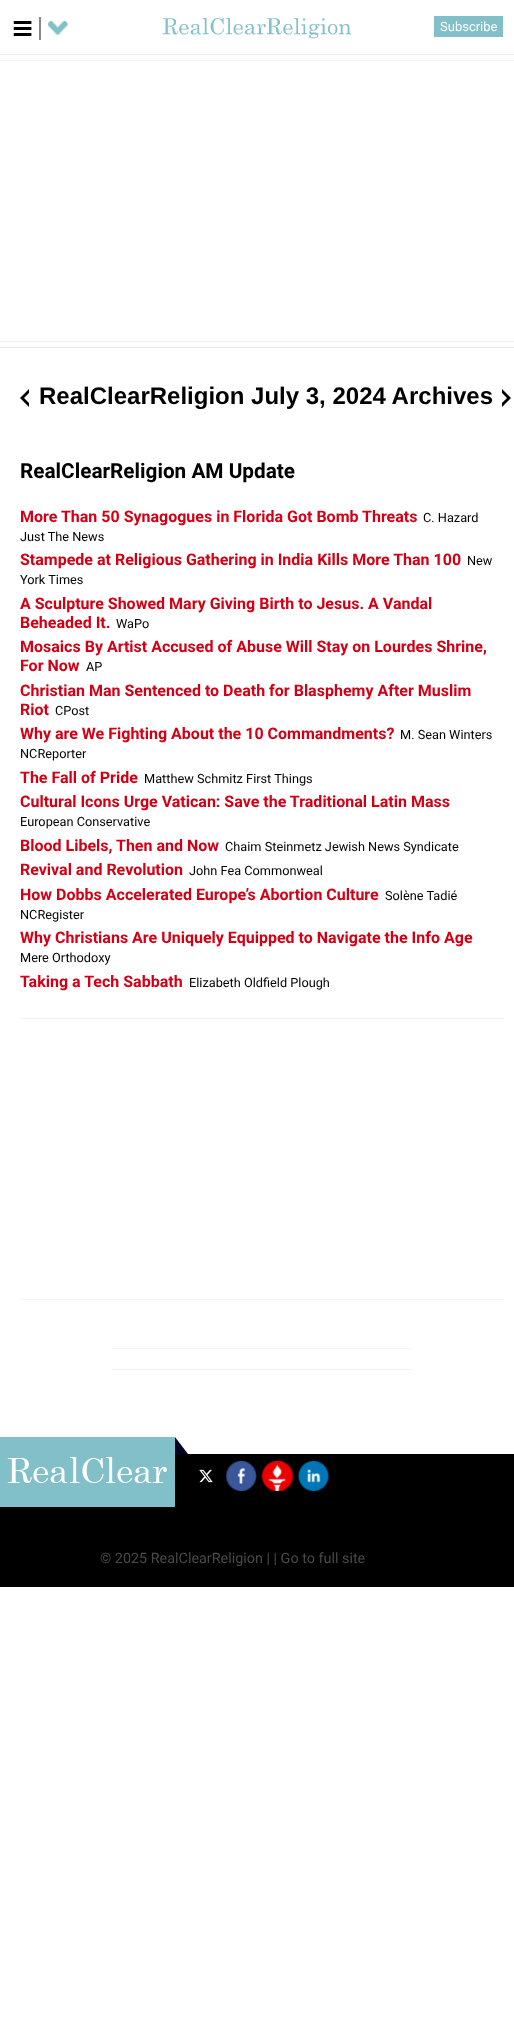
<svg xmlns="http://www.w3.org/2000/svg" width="514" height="2032">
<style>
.a{font:13px Roboto;fill:#fff}
.b{font:bold 24px Liberation Sans;fill:#000}
.c{font:bold 20.75px Roboto;fill:#000}
.d{font:bold 16px Roboto;fill:#d30015}
.e{font:12.75px Roboto;fill:#000}
.f{font:14.4px Roboto;fill:#494949}
</style>
<rect width="100%" height="100%" fill="#fff"/>
<path fill="#ebebeb" d="M0 54h514v1H0z"/>
<path fill="#888" d="M39 17h2v23H39z"/>
<image href="1.png" x="13" y="21" width="19" height="15"/>
<image href="2.png" x="48" y="21" width="20" height="14"/>
<image href="3.png" x="162" y="18" width="190" height="21"/>
<path fill="#81c0c8" d="M434 16h69v21H434z"/>
<path fill="#f2f2f2" d="M0 60h514v1H0z"/>
<path fill="#f2f2f2" d="M0 341h514v1H0z"/>
<path fill="#ebebeb" d="M0 347h514v1H0z"/>
<path fill="#000" d="M29 389v18l-9-9z"/>
<path fill="#fff" d="M29 393v10l-5-5z"/>
<path fill="#000" d="M502 407v-18l9 9z"/>
<path fill="#fff" d="M502 403v-10l5 5z"/>
<path fill="#f2f2f2" d="M20 1018h484v1H20z"/>
<path fill="#f2f2f2" d="M20 1299h484v1H20z"/>
<path fill="#f2f2f2" d="M112 1348h300v1H112z"/>
<path fill="#f2f2f2" d="M112 1369h300v1H112z"/>
<path fill="#000" d="M0 1454h514v133H0z"/>
<image href="4.png" x="0" y="1437" width="175" height="70"/>
<path fill="#03051f" d="M188 1454h-13v-17z"/>
<image href="5.png" x="199" y="1469" width="14" height="14"/>
<image href="6.png" x="226" y="1461" width="31" height="30"/>
<image href="7.png" x="262" y="1461" width="31" height="30"/>
<image href="8.png" x="298" y="1461" width="31" height="30"/>
<text class="a" x="440" y="31">Subscribe</text>
<text class="b" x="39" y="404">RealClearReligion July 3, 2024 Archives</text>
<text class="c" x="20" y="478">RealClearReligion AM Update</text>
<text class="d" x="20" y="522">More Than 50 Synagogues in Florida Got Bomb Threats</text>
<text class="e" x="423" y="522">C. Hazard</text>
<text class="e" x="20" y="541">Just The News</text>
<text class="d" x="20" y="565">Stampede at Religious Gathering in India Kills More Than 100</text>
<text class="e" x="467" y="565">New</text>
<text class="e" x="20" y="584">York Times</text>
<text class="d" x="20" y="609">A Sculpture Showed Mary Giving Birth to Jesus. A Vandal</text>
<text class="d" x="20" y="628">Beheaded It.</text>
<text class="e" x="116" y="628">WaPo</text>
<text class="d" x="20" y="652">Mosaics By Artist Accused of Abuse Will Stay on Lourdes Shrine,</text>
<text class="d" x="20" y="671">For Now</text>
<text class="e" x="86" y="671">AP</text>
<text class="d" x="20" y="696">Christian Man Sentenced to Death for Blasphemy After Muslim</text>
<text class="d" x="20" y="715">Riot</text>
<text class="e" x="55" y="715">CPost</text>
<text class="d" x="20" y="739">Why are We Fighting About the 10 Commandments?</text>
<text class="e" x="400" y="739">M. Sean Winters</text>
<text class="e" x="20" y="758">NCReporter</text>
<text class="d" x="20" y="783">The Fall of Pride</text>
<text class="e" x="144" y="783">Matthew Schmitz First Things</text>
<text class="d" x="20" y="807">Cultural Icons Urge Vatican: Save the Traditional Latin Mass</text>
<text class="e" x="20" y="826">European Conservative</text>
<text class="d" x="20" y="851">Blood Libels, Then and Now</text>
<text class="e" x="225" y="851">Chaim Steinmetz Jewish News Syndicate</text>
<text class="d" x="20" y="875">Revival and Revolution</text>
<text class="e" x="189" y="875">John Fea Commonweal</text>
<text class="d" x="20" y="900">How Dobbs Accelerated Europe’s Abortion Culture</text>
<text class="e" x="385" y="900">Solène Tadié</text>
<text class="e" x="20" y="919">NCRegister</text>
<text class="d" x="20" y="943">Why Christians Are Uniquely Equipped to Navigate the Info Age</text>
<text class="e" x="20" y="962">Mere Orthodoxy</text>
<text class="d" x="20" y="987">Taking a Tech Sabbath</text>
<text class="e" x="189" y="987">Elizabeth Oldfield Plough</text>
<text class="f" x="100" y="1563">© 2025 RealClearReligion | | Go to full site</text>
</svg>
